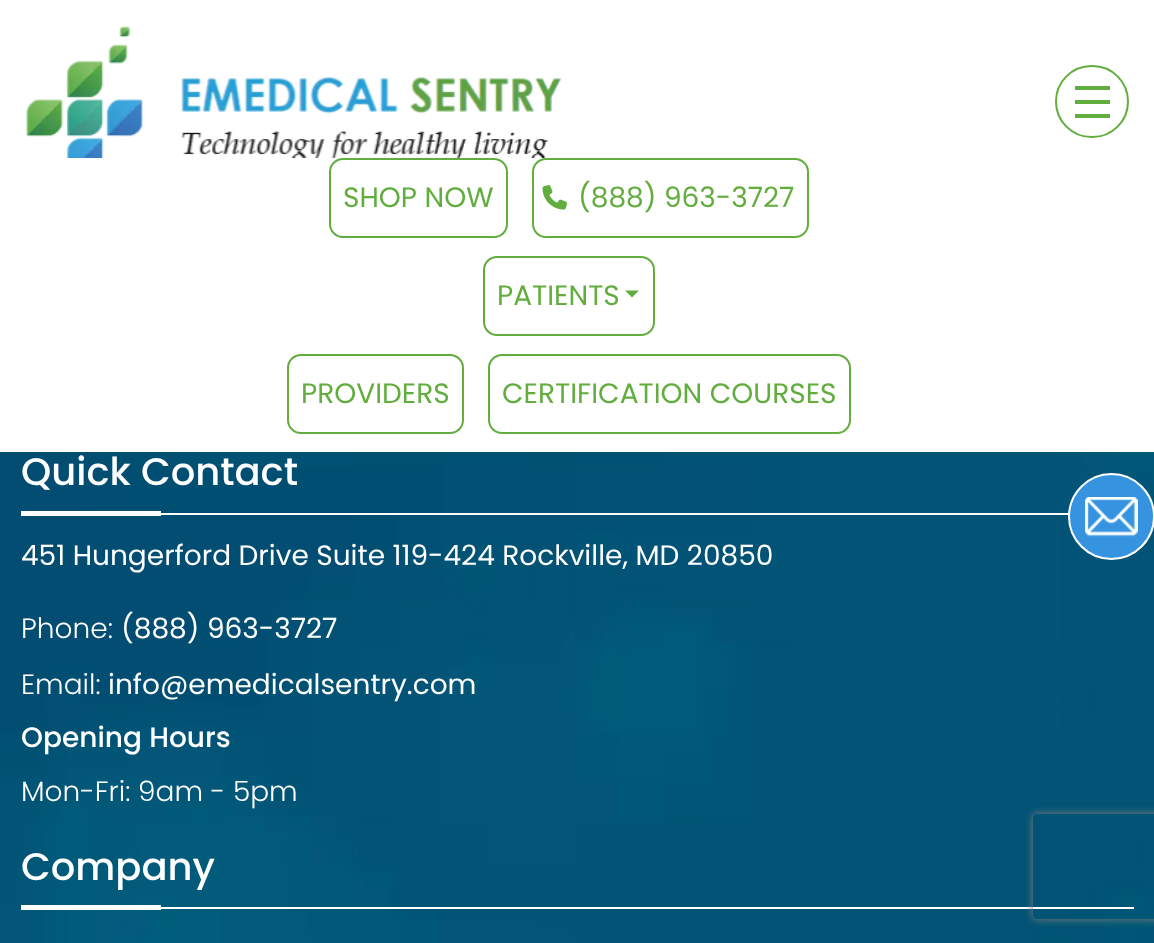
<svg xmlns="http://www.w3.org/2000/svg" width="1154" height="943">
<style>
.a{font:28px Poppins;fill:#61ad3d}
.b{font:500 38.5px Poppins;fill:#fff}
.c{font:28px Poppins;fill:#fff}
.d{font:300 28px Poppins;fill:#fff}
.e{font:500 28px Poppins;fill:#fff}
</style>
<defs>
<clipPath id="clip1"><path d="M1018 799h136v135h-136zm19 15h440c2 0 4 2 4 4v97c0 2-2 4-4 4h-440c-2 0-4-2-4-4v-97c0-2 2-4 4-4z" clip-rule="evenodd"/></clipPath>
</defs>
<rect width="100%" height="100%" fill="#fff"/>
<image href="1.png" x="26" y="26" width="536" height="132"/>
<rect fill="none" stroke="#61ad3d" stroke-width="2" x="1056" y="66" width="72" height="71" rx="35.5"/>
<path fill="#61ad3d" d="M1075 100h35v4H1075z"/>
<path fill="#61ad3d" d="M1075 86h35v4H1075z"/>
<path fill="#61ad3d" d="M1075 114h35v4H1075z"/>
<rect fill="none" stroke="#61ad3d" stroke-width="2" x="330" y="159" width="177" height="78" rx="13"/>
<rect fill="none" stroke="#61ad3d" stroke-width="2" x="533" y="159" width="275" height="78" rx="13"/>
<image href="2.png" x="542" y="185" width="25" height="25"/>
<rect fill="none" stroke="#61ad3d" stroke-width="2" x="484" y="257" width="170" height="78" rx="13"/>
<path fill="#61ad3d" d="M625 290.5h14l-7 7z"/>
<rect fill="none" stroke="#61ad3d" stroke-width="2" x="288" y="355" width="175" height="78" rx="13"/>
<rect fill="none" stroke="#61ad3d" stroke-width="2" x="489" y="355" width="361" height="78" rx="13"/>
<image href="3.png" x="0" y="452" width="1154" height="491"/>
<path fill="#fff" d="M21 511h140v5H21z"/>
<path fill="#fff" d="M161 513h908v2H161z"/>
<path fill="#fff" d="M21 905h140v5H21z"/>
<path fill="#fff" d="M161 907h973v2H161z"/>
<circle fill="#3593e0" stroke="#fff" stroke-width="2" cx="1111.5" cy="516.5" r="42.5"/>
<image href="4.png" x="1085" y="497" width="53" height="40"/>
<g clip-path="url(#clip1)">
<rect fill="#808080" filter="blur(4.5px)" x="1033" y="814" width="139" height="105" rx="4"/>
</g>
<text class="a" x="343" y="207">SHOP NOW</text>
<text class="a" x="578" y="207">(888) 963-3727</text>
<text class="a" x="497" y="305">PATIENTS</text>
<text class="a" x="301" y="403">PROVIDERS</text>
<text class="a" x="502" y="403">CERTIFICATION COURSES</text>
<text class="b" x="21" y="485">Quick Contact</text>
<text class="c" x="21" y="565">451 Hungerford Drive Suite 119-424 Rockville, MD 20850</text>
<text class="d" x="21" y="638">Phone:</text>
<text class="c" x="121" y="638">(888) 963-3727</text>
<text class="d" x="21" y="694">Email:</text>
<text class="c" x="108" y="694">info@emedicalsentry.com</text>
<text class="e" x="21" y="747">Opening Hours</text>
<text class="d" x="21" y="801">Mon-Fri: 9am - 5pm</text>
<text class="b" x="21" y="880">Company</text>
</svg>
